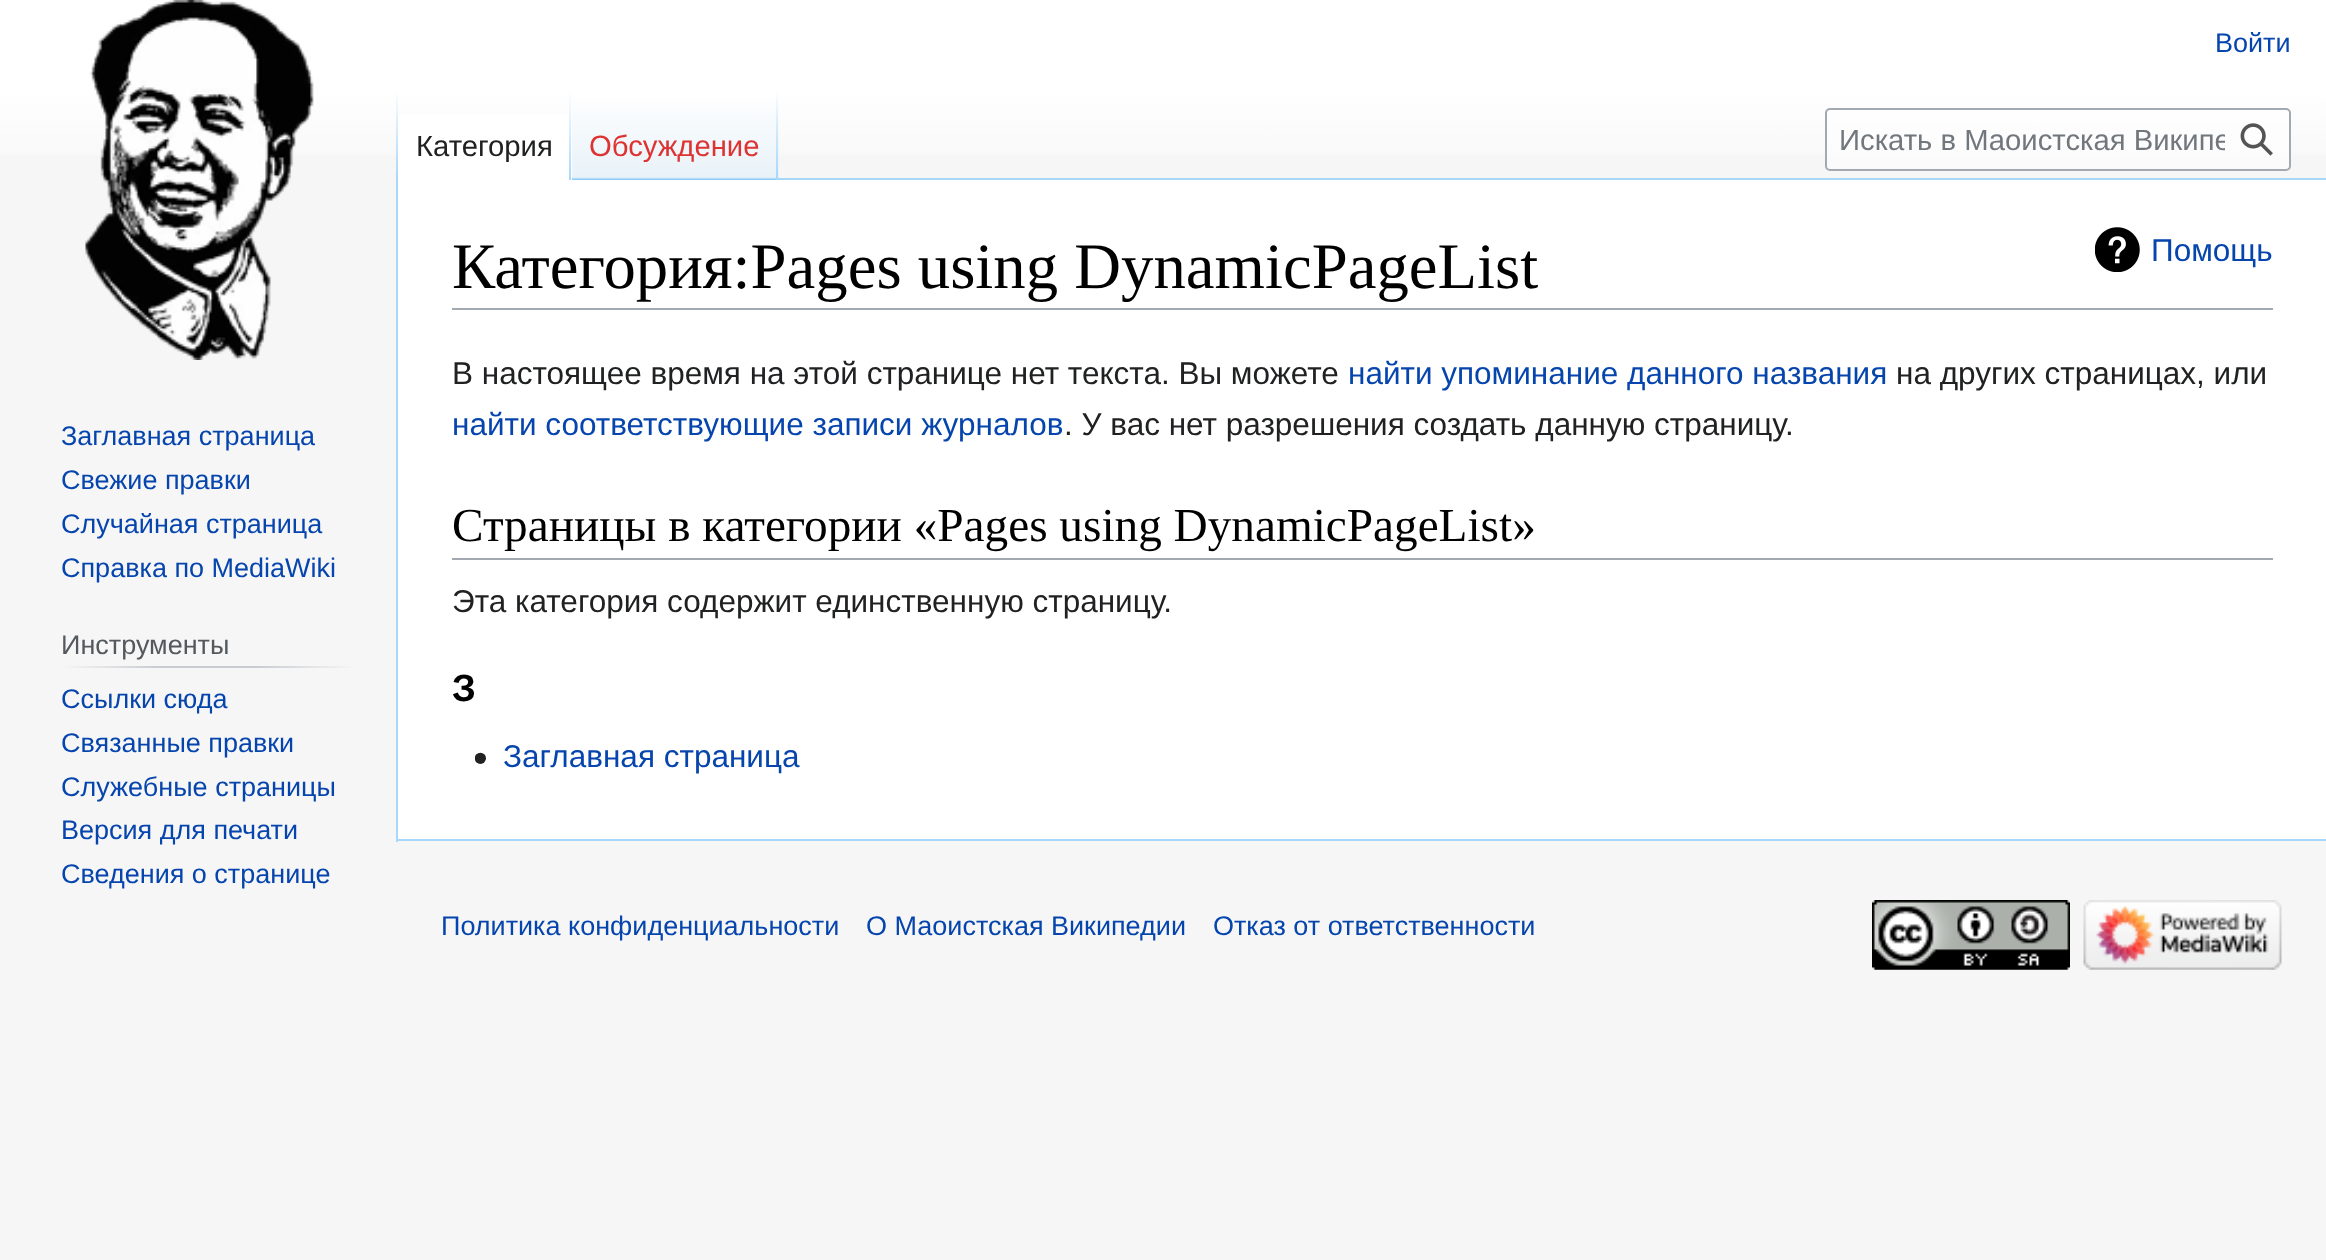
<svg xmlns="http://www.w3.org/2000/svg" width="2326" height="1260">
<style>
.a{font:27px Liberation Sans;fill:#0645ad}
.b{font:29.25px Liberation Sans;fill:#202122}
.c{font:29.25px Liberation Sans;fill:#d33}
.d{font:29.25px Liberation Sans;fill:#72777d}
.e{font:27px Liberation Sans;fill:#54595d}
.f{font:64.75px Liberation Serif;fill:#000}
.g{font:31.5px Liberation Sans;fill:#0645ad}
.h{font:31.5px Liberation Sans;fill:#202122}
.i{font:47.25px Liberation Serif;fill:#000}
.j{font:bold 38px Liberation Sans;fill:#000}
</style>
<defs>
<linearGradient id="g1" gradientUnits="userSpaceOnUse" x1="1163" y1="0" x2="1163" y2="180"><stop offset="0.5" stop-color="#fff"/><stop offset="1" stop-color="#f6f6f6"/></linearGradient>
<linearGradient id="g2" gradientUnits="userSpaceOnUse" x1="397" y1="90" x2="397" y2="180"><stop offset="0" stop-color="#a7d7f9" stop-opacity="0"/><stop offset="1" stop-color="#a7d7f9"/></linearGradient>
<linearGradient id="g3" gradientUnits="userSpaceOnUse" x1="570" y1="90" x2="570" y2="180"><stop offset="0" stop-color="#fff"/><stop offset="1" stop-color="#a7d7f9"/></linearGradient>
<linearGradient id="g4" gradientUnits="userSpaceOnUse" x1="675" y1="180" x2="675" y2="90"><stop offset="0" stop-color="#77c1f6"/><stop offset="0.03" stop-color="#e8f2f8"/><stop offset="1" stop-color="#fff"/></linearGradient>
<linearGradient id="g5" gradientUnits="userSpaceOnUse" x1="777" y1="90" x2="777" y2="180"><stop offset="0" stop-color="#a7d7f9" stop-opacity="0"/><stop offset="1" stop-color="#a7d7f9"/></linearGradient>
<linearGradient id="g6" gradientUnits="userSpaceOnUse" x1="61" y1="667" x2="356" y2="667"><stop offset="0" stop-color="#f6f6f6"/><stop offset="0.33" stop-color="#c8ccd1"/><stop offset="0.66" stop-color="#c8ccd1"/><stop offset="1" stop-color="#f6f6f6"/></linearGradient>
<clipPath id="clip1"><path d="M1838 124h387v34H1838z"/></clipPath>
</defs>
<rect width="100%" height="100%" fill="#f6f6f6"/>
<path fill="url(#g1)" d="M0 0h2326v155H0z"/>
<path fill="#a7d7f9" d="M396 839h1930v2H396z"/>
<path fill="#a7d7f9" d="M396 178h2v664H396z"/>
<path fill="url(#g2)" d="M396 90h2v90H396z"/>
<path fill="#fff" d="M398 115h174v65H398z"/>
<path fill="url(#g3)" d="M569 90h2v90H569z"/>
<path fill="url(#g4)" d="M572 103h207v77H572z"/>
<path fill="url(#g5)" d="M776 90h2v90H776z"/>
<rect fill="#ffffff80" stroke="#a2a9b1" stroke-width="2" x="1826" y="109" width="464" height="61" rx="4"/>
<image href="1.png" x="2240" y="123" width="33" height="33"/>
<image href="2.png" x="85" y="0" width="229" height="360"/>
<path fill="url(#g6)" d="M61 666h295v2H61z"/>
<path fill="#fff" d="M398 180h1928v659H398z"/>
<path fill="#a7d7f9" d="M779 178h1547v2H779z"/>
<path fill="#a2a9b1" d="M452 308h1821v2H452z"/>
<image href="3.png" x="2095" y="227" width="45" height="45"/>
<path fill="#a2a9b1" d="M452 558h1821v2H452z"/>
<image href="4.png" x="475" y="752" width="11" height="12"/>
<image href="5.png" x="1872" y="900" width="198" height="70"/>
<image href="6.png" x="2083" y="900" width="199" height="70"/>
<text class="a" x="2215" y="52">Войти</text>
<text class="b" x="416" y="156">Категория</text>
<text class="c" x="589" y="156">Обсуждение</text>
<g clip-path="url(#clip1)">
<text class="d" x="1839" y="150">Искать в Маоистская Википе</text>
</g>
<text class="a" x="61" y="445">Заглавная страница</text>
<text class="a" x="61" y="489">Свежие правки</text>
<text class="a" x="61" y="533">Случайная страница</text>
<text class="a" x="61" y="577">Справка по MediaWiki</text>
<text class="e" x="61" y="654">Инструменты</text>
<text class="a" x="61" y="708">Ссылки сюда</text>
<text class="a" x="61" y="752">Связанные правки</text>
<text class="a" x="61" y="796">Служебные страницы</text>
<text class="a" x="61" y="839">Версия для печати</text>
<text class="a" x="61" y="883">Сведения о странице</text>
<text class="f" x="452" y="288">Категория:Pages using DynamicPageList</text>
<text class="g" x="2151" y="261">Помощь</text>
<text class="h" x="452" y="384">В настоящее время на этой странице нет текста. Вы можете</text>
<text class="g" x="1348" y="384">найти упоминание данного названия</text>
<text class="h" x="1896" y="384">на других страницах, или</text>
<text class="g" x="452" y="435">найти соответствующие записи журналов</text>
<text class="h" x="1064" y="435">. У вас нет разрешения создать данную страницу.</text>
<text class="i" x="452" y="541">Страницы в категории «Pages using DynamicPageList»</text>
<text class="h" x="452" y="612">Эта категория содержит единственную страницу.</text>
<text class="j" x="452" y="701">З</text>
<text class="g" x="503" y="767">Заглавная страница</text>
<text class="a" x="441" y="935">Политика конфиденциальности</text>
<text class="a" x="866" y="935">О Маоистская Википедии</text>
<text class="a" x="1213" y="935">Отказ от ответственности</text>
</svg>
